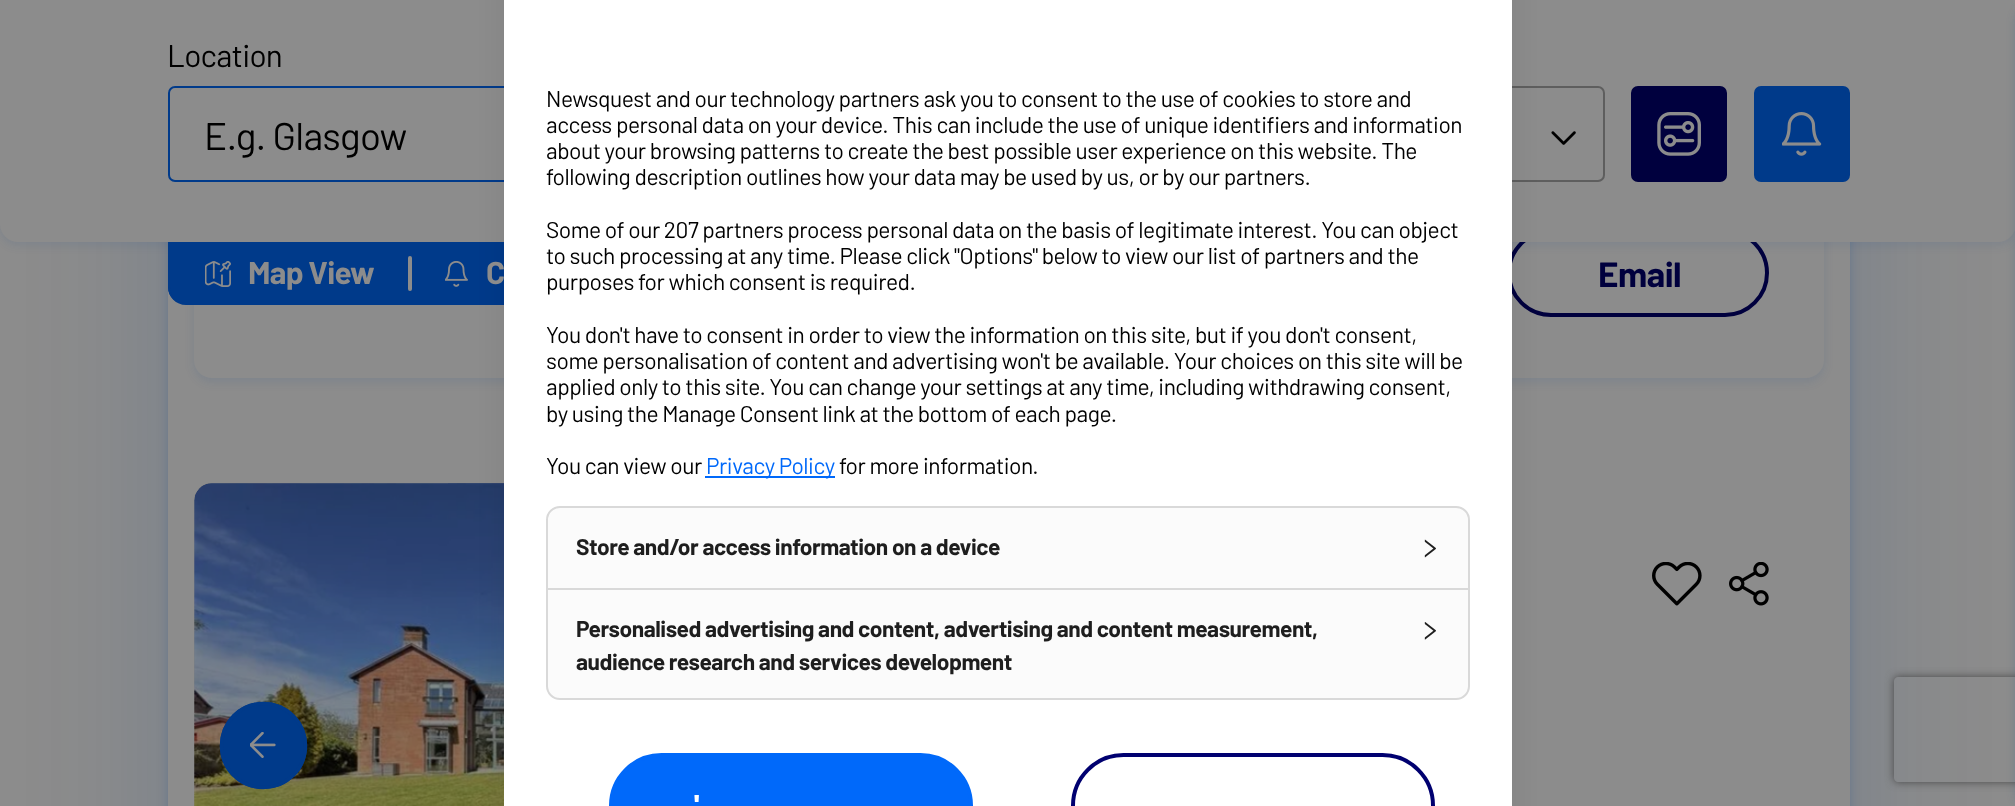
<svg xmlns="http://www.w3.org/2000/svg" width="2015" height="806">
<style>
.a{font:31.5px Barlow;letter-spacing:-0.75px;fill:#000}
.b{font:38.5px Barlow;letter-spacing:-0.75px;fill:#000}
.c{font:bold 31.5px Barlow;letter-spacing:-0.75px;fill:#8c8c8c}
.d{font:bold 35px Barlow;letter-spacing:-0.5px;fill:#00003e}
.e{font:22.75px Barlow;letter-spacing:-0.46px;fill:#000}
.f{font:22.75px Barlow;letter-spacing:-0.46px;fill:#0069fa}
.g{font:bold 22.75px Barlow;letter-spacing:-0.46px;fill:#1e1e1e}
.h{font:bold 31.5px Barlow;letter-spacing:-0.75px;fill:#fff}
</style>
<defs>
<clipPath id="clip1"><path d="M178 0h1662v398h-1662zm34-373h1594c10 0 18 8 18 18v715c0 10-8 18-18 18h-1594c-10 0-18-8-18-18v-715c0-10 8-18 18-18z" clip-rule="evenodd"/></clipPath>
<clipPath id="clip2"><path d="M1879 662h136v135h-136zm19 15h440c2 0 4 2 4 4v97c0 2-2 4-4 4h-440c-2 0-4-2-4-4v-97c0-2 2-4 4-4z" clip-rule="evenodd"/></clipPath>
</defs>
<rect width="100%" height="100%" fill="#8c8c8c"/>
<rect fill="#003a8a33" filter="blur(5px)" x="168" y="-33" width="1682" height="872" rx="18"/>
<rect fill="#003a8a26" filter="blur(70px)" x="168" y="-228" width="1682" height="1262" rx="18"/>
<path fill="#8c8c8c" d="M168 242h1682v564H168z"/>
<g clip-path="url(#clip1)">
<rect fill="#003a8a1a" filter="blur(5px)" x="194" y="-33" width="1630" height="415" rx="18"/>
</g>
<rect fill="none" stroke="#00003e" stroke-width="4" x="1509" y="231" width="258" height="84" rx="42"/>
<path fill="#8c8c8c" d="M88 0h1842v242H88z"/>
<rect fill="#003a8a1a" filter="blur(5px)" y="-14" width="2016" height="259" rx="18"/>
<rect fill="#8c8c8c" y="-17" width="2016" height="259" rx="18"/>
<rect fill="none" stroke="#003a8a" stroke-width="2" x="169" y="87" width="709" height="94" rx="6"/>
<rect fill="none" stroke="#5e5e5e" stroke-width="2" x="1268" y="87" width="336" height="94" rx="6"/>
<image href="1.png" x="1551" y="131" width="25" height="14"/>
<rect fill="#00003e" stroke="#00003e" stroke-width="4" x="1633" y="88" width="92" height="92" rx="5"/>
<image href="2.png" x="1657" y="112" width="44" height="44"/>
<rect fill="#003a8a" stroke="#003a8a" stroke-width="4" x="1756" y="88" width="92" height="92" rx="5"/>
<image href="3.png" x="1782" y="112" width="40" height="44"/>
<rect fill="#003a8a33" filter="blur(5px)" x="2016" y="4" width="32" height="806" rx="18"/>
<path fill="#003a8a" d="M168 242h242v63h-224c-10 0-18-8-18-18z"/>
<path fill="#003a8a" fill-rule="evenodd" d="M168 242h242v62h-224c-10 0-18-7-18-17zm2 1h240v60h-224c-9 0-16-7-16-16z"/>
<image href="4.png" x="205" y="261" width="26" height="26"/>
<path fill="#003a8a" d="M410 243h94v62H410z"/>
<path fill="#003a8a" fill-rule="evenodd" d="M410 242h271v45c0 10-8 17-18 17h-253zm0 1h269v44c0 9-7 16-16 16h-253z"/>
<rect fill="#8c8c8c" x="408" y="256" width="4" height="35" rx="2"/>
<image href="5.png" x="445" y="261" width="23" height="26"/>
<path fill="#5e5e5e1a" d="M212 483h682v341h-682c-10 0-18-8-18-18v-305c0-10 8-18 18-18z"/>
<image href="6.png" x="194" y="483" width="310" height="323"/>
<path fill="#5e5e5e1a" d="M212 483h682v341h-682c-10 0-18-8-18-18v-305c0-10 8-18 18-18z"/>
<image href="7.png" x="194" y="483" width="310" height="323"/>
<path fill="#003a8a" d="M263 789c-24 0-43-19-43-43c0-25 19-44 43-44c25 0 44 19 44 44c0 24-19 43-44 43z"/>
<path fill="none" stroke="#003a8a" stroke-width="3.5" d="M263.5 787.5c-23.5 0-42-18.5-42-42c0-23 18.5-42 42-42c23 0 42 19 42 42c0 23.5-19 42-42 42z"/>
<image href="8.png" x="250" y="732" width="26" height="26"/>
<image href="9.png" x="1652" y="562" width="50" height="44"/>
<image href="10.png" x="1729" y="562" width="40" height="44"/>
<rect fill="#00000014" filter="blur(14px)" x="504" y="-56" width="1008" height="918" rx="14"/>
<path fill="#fff" d="M504 0h1008v806H504z"/>
<path fill="#0069fa" d="M705 476h130v2H705z"/>
<rect fill="#fbfbfb" stroke="#d9d9d9" stroke-width="2" x="547" y="507" width="922" height="192" rx="13"/>
<path fill="#d9d9d9" d="M548 588h920v2H548z"/>
<image href="11.png" x="1424" y="539" width="12" height="19"/>
<image href="12.png" x="1424" y="622" width="12" height="18"/>
<rect fill="#0069fa" stroke="#0069fa" stroke-width="4" x="611" y="755" width="360" height="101" rx="50.5"/>
<rect fill="none" stroke="#000070" stroke-width="4" x="1073" y="755" width="360" height="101" rx="50.5"/>
<g clip-path="url(#clip2)">
<rect fill="#464646" filter="blur(4.5px)" x="1894" y="677" width="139" height="105" rx="4"/>
</g>
<text class="a" x="167" y="67">Location</text>
<text class="b" x="204" y="150">E.g. Glasgow</text>
<text class="c" x="248" y="284">Map View</text>
<text class="c" x="486" y="284">C</text>
<text class="d" x="1598" y="287">Email</text>
<text class="e" x="546" y="107">Newsquest and our technology partners ask you to consent to the use of cookies to store and</text>
<text class="e" x="546" y="133">access personal data on your device. This can include the use of unique identifiers and information</text>
<text class="e" x="546" y="159">about your browsing patterns to create the best possible user experience on this website. The</text>
<text class="e" x="546" y="185">following description outlines how your data may be used by us, or by our partners.</text>
<text class="e" x="546" y="238">Some of our 207 partners process personal data on the basis of legitimate interest. You can object</text>
<text class="e" x="546" y="264">to such processing at any time. Please click "Options" below to view our list of partners and the</text>
<text class="e" x="546" y="290">purposes for which consent is required.</text>
<text class="e" x="546" y="343">You don't have to consent in order to view the information on this site, but if you don't consent,</text>
<text class="e" x="546" y="369">some personalisation of content and advertising won't be available. Your choices on this site will be</text>
<text class="e" x="546" y="395">applied only to this site. You can change your settings at any time, including withdrawing consent,</text>
<text class="e" x="546" y="422">by using the Manage Consent link at the bottom of each page.</text>
<text class="e" x="546" y="474">You can view our</text>
<text class="f" x="706" y="474">Privacy Policy</text>
<text class="e" x="839" y="474">for more information.</text>
<text class="g" x="576" y="555">Store and/or access information on a device</text>
<text class="g" x="576" y="637">Personalised advertising and content, advertising and content measurement,</text>
<text class="g" x="576" y="670">audience research and services development</text>
<text class="h" x="694" y="817">'</text>
</svg>
